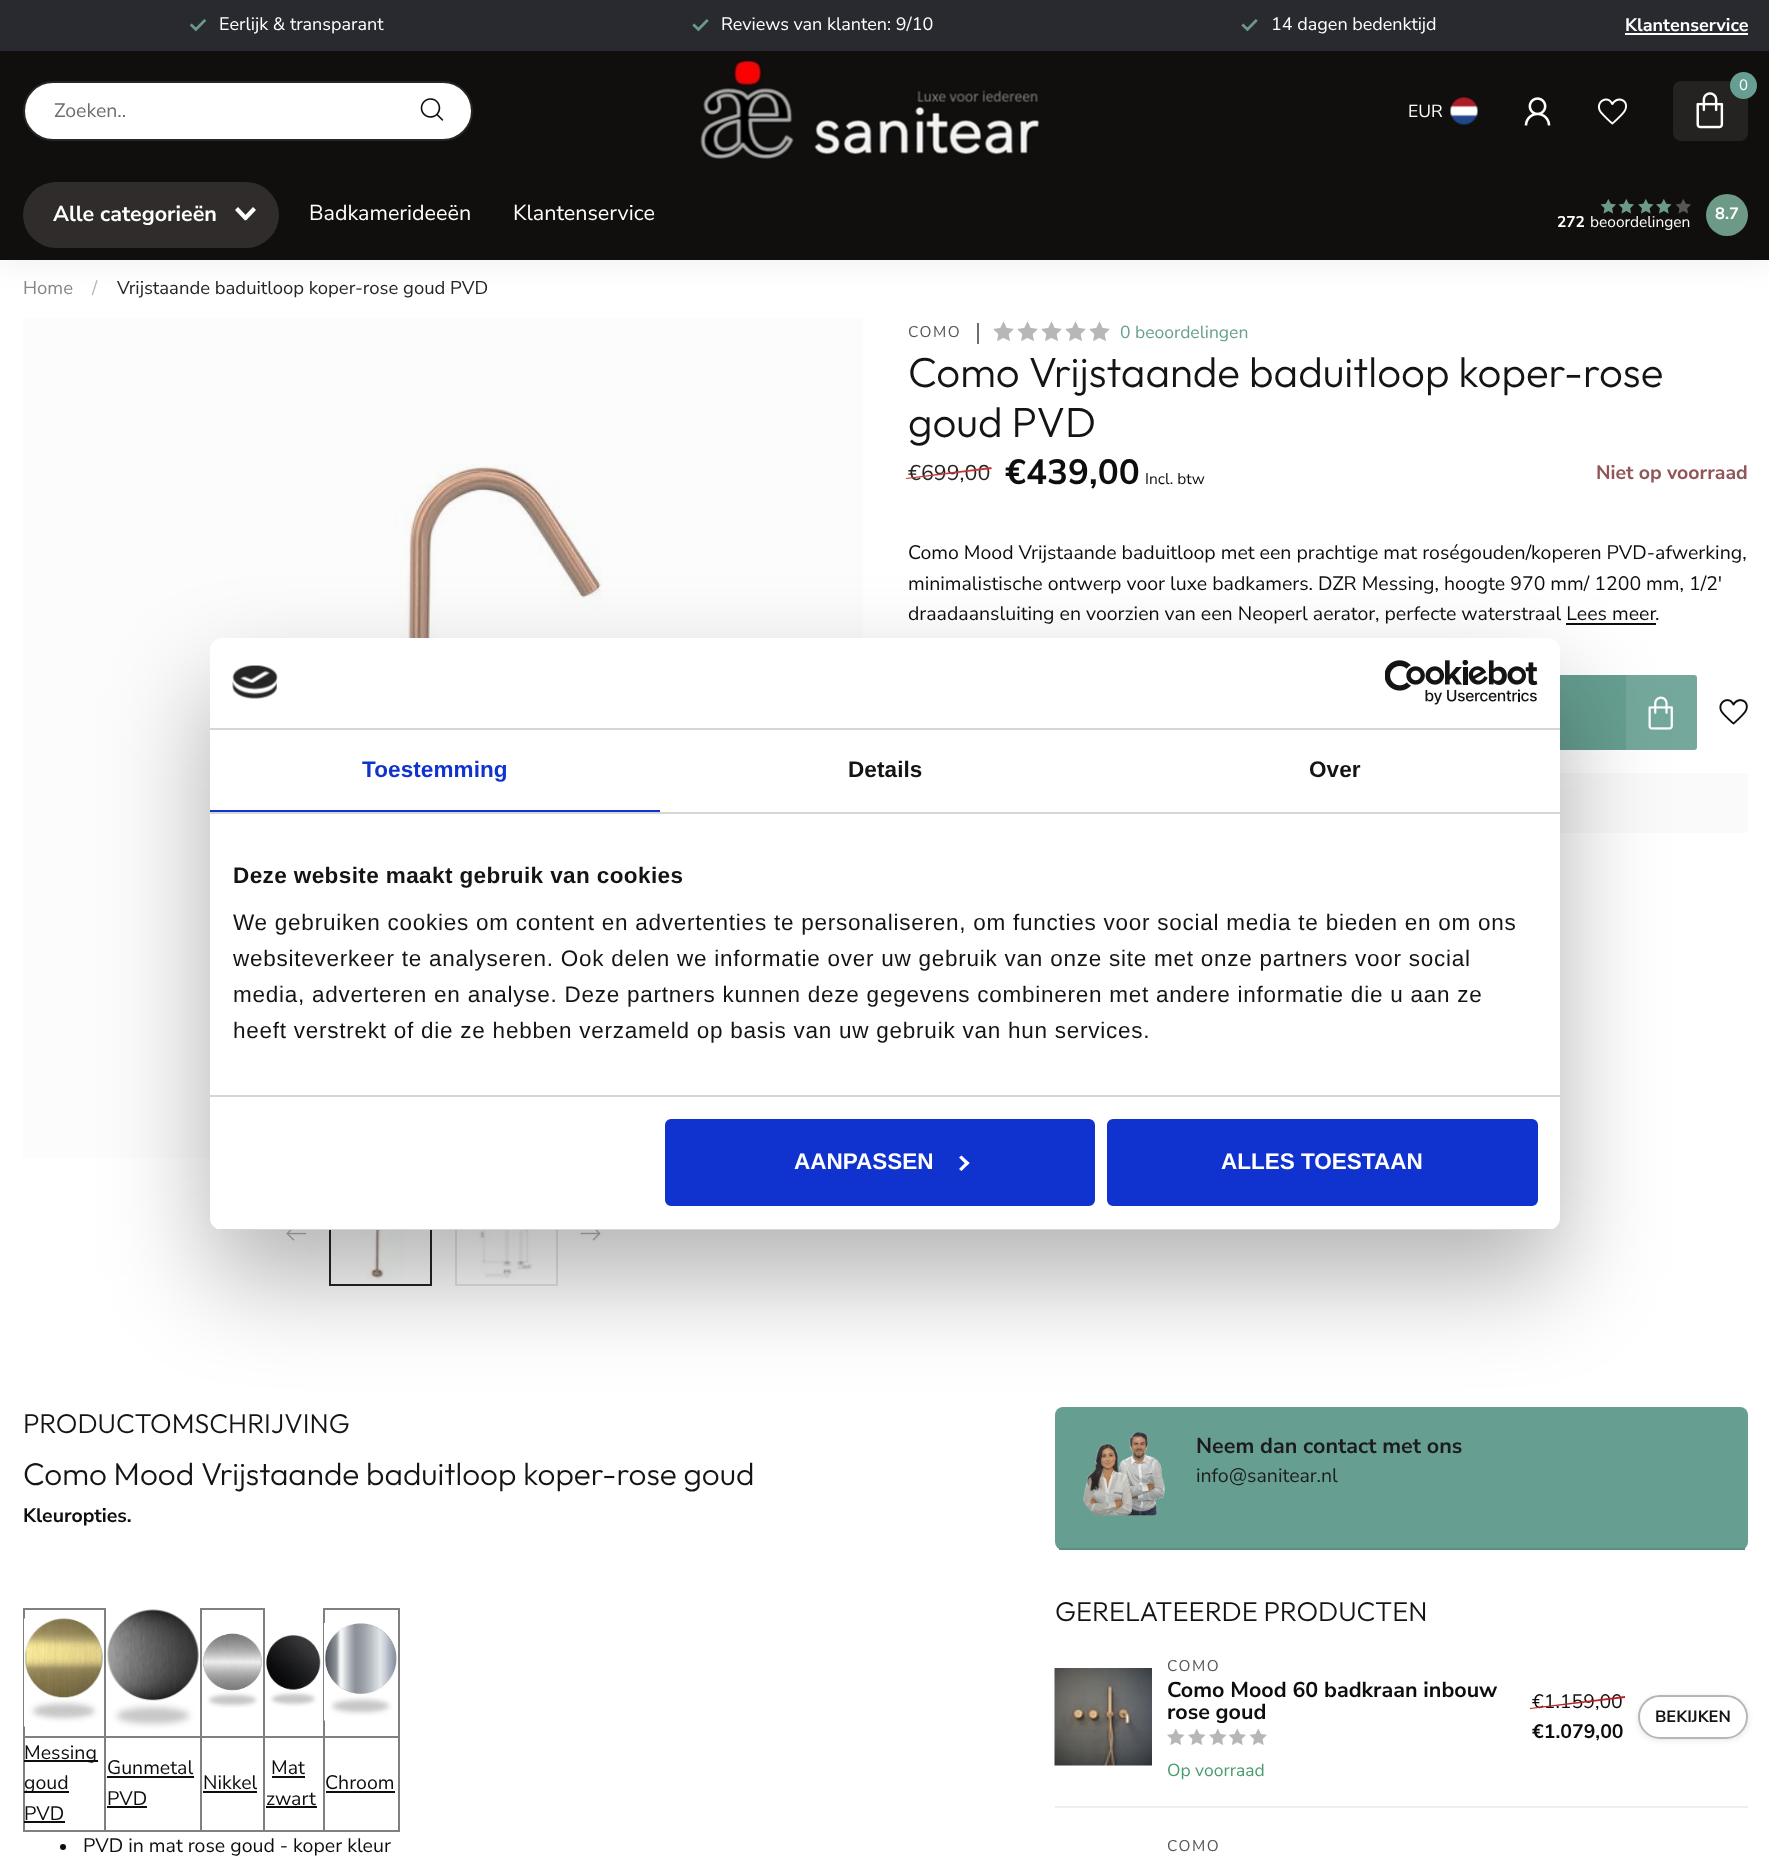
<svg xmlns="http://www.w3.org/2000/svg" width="1769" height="1865">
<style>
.a{font:18px Nunito Sans;fill:#fff}
.b{font:bold 18px Nunito Sans;fill:#fff}
.c{font:19.5px Nunito Sans;fill:#6e6e6e}
.d{font:15px Nunito Sans;fill:#fff}
.e{font:17.5px Nunito Sans;fill:#fff}
.f{font:bold 21.5px Nunito Sans;fill:#fff}
.g{font:21.5px Nunito Sans;fill:#fff}
.h{font:bold 16.5px Nunito Sans;fill:#fff}
.i{font:bold 15.5px Nunito Sans;fill:#fff}
.j{font:15.5px Nunito Sans;fill:#fff}
.k{font:18.5px Nunito Sans;fill:#878686}
.l{font:18.5px Nunito Sans;fill:#b7b6b6}
.m{font:18.5px Nunito Sans;fill:#262525}
.n{font:15.5px Nunito Sans;letter-spacing:1.5px;fill:#565656}
.o{font:17.5px Nunito Sans;fill:#669f91}
.p{font:300 42px Outfit;fill:#151414}
.q{font:21.5px Nunito Sans;fill:#262525}
.r{font:bold 35px Nunito Sans;fill:#0e0d0d}
.s{font:15.5px Nunito Sans;fill:#0e0d0d}
.t{font:bold 19.5px Nunito Sans;fill:#905659}
.u{font:19.5px Nunito Sans;fill:#0e0d0d}
.v{font:300 27.25px Outfit;fill:#151414}
.w{font:300 31.5px Outfit;fill:#151414}
.x{font:bold 19.5px Nunito Sans;fill:#0e0d0d}
.y{font:bold 21.5px Nunito Sans;fill:#1c1c1c}
.z{font:19.5px Nunito Sans;fill:#1c1c1c}
.a1{font:bold 21.5px Nunito Sans;fill:#0e0d0d}
.b1{font:17.5px Nunito Sans;fill:#489c6d}
.c1{font:bold 16.5px Nunito Sans;fill:#151414}
.d1{font:bold 22.5px Liberation Sans;letter-spacing:0.1px;fill:#1032cf}
.e1{font:bold 22.5px Liberation Sans;letter-spacing:0.1px;fill:#151414}
.f1{font:bold 22.5px Liberation Sans;letter-spacing:0.4px;fill:#151414}
.g1{font:22.5px Liberation Sans;letter-spacing:0.75px;fill:#151414}
.h1{font:bold 22.5px Liberation Sans;fill:#fff}
</style>
<defs>
<clipPath id="clip1"><path d="M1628 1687h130v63h-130zm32 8h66c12 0 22 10 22 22c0 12-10 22-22 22h-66c-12 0-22-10-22-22c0-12 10-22 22-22z" clip-rule="evenodd"/></clipPath>
<clipPath id="clip2"><rect x="210" y="638" width="1350" height="592" rx="12"/></clipPath>
</defs>
<rect width="100%" height="100%" fill="#fff"/>
<path fill="#fcfcfc" d="M23 318h840v840H23z"/>
<path fill="#282a30" d="M0 0h1769v51H0z"/>
<image href="1.png" x="189" y="19" width="18" height="13"/>
<image href="2.png" x="692" y="19" width="17" height="13"/>
<image href="2.png" x="1241" y="19" width="17" height="13"/>
<path fill="#fff" d="M1625 33h123v2H1625z"/>
<path fill="#00000014" filter="blur(16.5px)" d="M0 171h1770v89H0z"/>
<path fill="#100f0d" d="M0 51h1769v209H0z"/>
<rect fill="#fff" stroke="#272625" stroke-width="2" x="24" y="82" width="448" height="58" rx="29"/>
<image href="3.png" x="420" y="98" width="24" height="23"/>
<image href="4.png" x="700" y="58" width="340" height="101"/>
<rect fill="#242321" x="1673" y="81" width="75" height="60" rx="8"/>
<circle fill="#669f91" cx="1743.5" cy="85.5" r="13.5"/>
<image href="5.png" x="1696" y="92" width="28" height="37"/>
<image href="6.png" x="1450" y="97" width="28" height="28"/>
<image href="7.png" x="1524" y="97" width="27" height="29"/>
<image href="8.png" x="1597" y="98" width="30" height="27"/>
<rect fill="#312c2c" x="23" y="182" width="256" height="66" rx="33"/>
<path fill="#fff" d="M238 207l10 10.5l-3 3l-10-10.5z"/>
<path fill="#fff" d="M243 217.5l10-10.5l3 3l-10 10.5z"/>
<circle fill="#6c9a87" cx="1727" cy="215" r="21"/>
<image href="9.png" x="1600" y="199" width="16" height="15"/>
<image href="9.png" x="1618" y="199" width="16" height="15"/>
<image href="10.png" x="1638" y="199" width="16" height="15"/>
<image href="10.png" x="1656" y="199" width="16" height="15"/>
<image href="11.png" x="1675" y="199" width="16" height="15"/>
<image href="12.png" x="365" y="463" width="237" height="175"/>
<image href="13.png" x="286" y="1230" width="21" height="11"/>
<path fill="none" stroke="#262525" stroke-width="2" d="M330 1183h101v102H330z"/>
<image href="14.png" x="367" y="1230" width="37" height="51"/>
<path fill="none" stroke="#e6e6e6" stroke-width="2" d="M456 1183h101v102H456z"/>
<image href="15.png" x="479" y="1230" width="54" height="49"/>
<image href="16.png" x="580" y="1230" width="21" height="11"/>
<path fill="#6e6e6e" d="M977 323h2v21H977z"/>
<image href="17.png" x="993" y="321" width="21" height="21"/>
<image href="17.png" x="1017" y="321" width="21" height="21"/>
<image href="17.png" x="1041" y="321" width="21" height="21"/>
<image href="17.png" x="1065" y="321" width="21" height="21"/>
<image href="17.png" x="1089" y="321" width="21" height="21"/>
<path fill="#0e0d0d" d="M1566 623h90v2H1566z"/>
<rect fill="#669f91" x="1035" y="675" width="662" height="75" rx="3"/>
<image href="18.png" x="1648" y="696" width="25" height="34"/>
<path fill="#ffffff1a" d="M1626 675h71v75H1626z"/>
<image href="19.png" x="1719" y="699" width="29" height="26"/>
<rect fill="#fafafa" x="908" y="773" width="840" height="60" rx="3"/>
<path fill="#808080" d="M23 1608h82v2H23z"/>
<path fill="#808080" d="M323 1736h76v2H323z"/>
<path fill="#808080" d="M398 1736h2v96H398z"/>
<path fill="#808080" d="M323 1830h76v2H323z"/>
<path fill="#808080" d="M323 1736h2v96H323z"/>
<path fill="#808080" d="M263 1736h61v2H263z"/>
<path fill="#808080" d="M263 1830h61v2H263z"/>
<path fill="#808080" d="M263 1736h2v96H263z"/>
<path fill="#808080" d="M200 1736h64v2H200z"/>
<path fill="#808080" d="M200 1830h64v2H200z"/>
<path fill="#808080" d="M200 1736h2v96H200z"/>
<path fill="#808080" d="M104 1736h97v2H104z"/>
<path fill="#808080" d="M104 1830h97v2H104z"/>
<path fill="#808080" d="M104 1736h2v96H104z"/>
<path fill="#808080" d="M23 1736h82v2H23z"/>
<path fill="#808080" d="M104 1608h2v129H104z"/>
<path fill="#808080" d="M23 1830h82v2H23z"/>
<path fill="#808080" d="M23 1736h2v96H23z"/>
<path fill="#808080" d="M23 1608h2v129H23z"/>
<image href="20.png" x="24" y="1618" width="79" height="109"/>
<image href="21.png" x="107" y="1609" width="92" height="120"/>
<path fill="#808080" d="M200 1608h64v2H200z"/>
<path fill="#808080" d="M263 1608h2v129H263z"/>
<path fill="#808080" d="M200 1608h2v129H200z"/>
<image href="22.png" x="203" y="1633" width="59" height="75"/>
<image href="23.png" x="266" y="1635" width="55" height="72"/>
<path fill="#808080" d="M323 1608h76v2H323z"/>
<path fill="#808080" d="M398 1608h2v129H398z"/>
<path fill="#808080" d="M323 1608h2v129H323z"/>
<image href="24.png" x="324" y="1623" width="73" height="98"/>
<path fill="#0e0d0d" d="M24 1760h74v2H24z"/>
<path fill="#0e0d0d" d="M24 1791h45v2H24z"/>
<path fill="#0e0d0d" d="M24 1821h41v2H24z"/>
<path fill="#0e0d0d" d="M107 1776h87v2H107z"/>
<path fill="#0e0d0d" d="M107 1806h40v2H107z"/>
<path fill="#0e0d0d" d="M203 1791h54v2H203z"/>
<path fill="#0e0d0d" d="M272 1776h33v2H272z"/>
<path fill="#0e0d0d" d="M266 1806h51v2H266z"/>
<path fill="#0e0d0d" d="M326 1791h69v2H326z"/>
<circle fill="#0e0d0d" cx="63" cy="1847" r="3"/>
<rect fill="#669f91" x="1055" y="1407" width="693" height="143" rx="8"/>
<path fill="#5b8f82" d="M1059 1548h686v2H1059z"/>
<image href="25.png" x="1083" y="1432" width="82" height="84"/>
<path fill="#eee" d="M1055 1806h693v2H1055z"/>
<image href="26.png" x="1054" y="1668" width="98" height="98"/>
<image href="27.png" x="1167" y="1728" width="18" height="17"/>
<image href="27.png" x="1188" y="1728" width="18" height="17"/>
<image href="27.png" x="1209" y="1728" width="18" height="17"/>
<image href="28.png" x="1228" y="1728" width="18" height="17"/>
<image href="28.png" x="1249" y="1728" width="18" height="17"/>
<g clip-path="url(#clip1)">
<rect fill="#0000001a" filter="blur(3px)" x="1638" y="1697" width="110" height="43" rx="21.5"/>
</g>
<rect fill="none" stroke="#b6b6b6" stroke-width="2" x="1639" y="1696" width="108" height="42" rx="21"/>
<rect fill="#0000004d" filter="blur(51px)" x="210" y="686" width="1350" height="592" rx="12"/>
<rect fill="#fff" x="210" y="638" width="1350" height="592" rx="12"/>
<path fill="#d6d6d6" d="M210 728h1350v2H210z"/>
<image href="29.png" x="232" y="665" width="46" height="34"/>
<image href="30.png" x="1385" y="660" width="153" height="45"/>
<path fill="#d6d6d6" d="M210 812h1350v2H210z"/>
<path fill="#1032cf" d="M210 810h450v2H210z"/>
<path fill="#d6d6d6" d="M210 1095h1350v2H210z"/>
<g clip-path="url(#clip2)">
<path fill="#d6d6d6" d="M210 1229h1350v1H210z"/>
</g>
<rect fill="#1032cf" stroke="#1032cf" stroke-width="3" x="666.5" y="1120.5" width="427" height="84" rx="4.5"/>
<path fill="#fff" d="M961.5 1155.5l8 7.5l-2.5 2.5l-8-8z"/>
<path fill="#fff" d="M967 1161l2.5 2l-8 8l-2.5-2z"/>
<rect fill="#1032cf" stroke="#1032cf" stroke-width="3" x="1108.5" y="1120.5" width="428" height="84" rx="4.5"/>
<text class="a" x="219" y="30">Eerlijk &amp; transparant</text>
<text class="a" x="721" y="30">Reviews van klanten: 9/10</text>
<text class="a" x="1271" y="30">14 dagen bedenktijd</text>
<text class="b" x="1625" y="31">Klantenservice</text>
<text class="c" x="54" y="117">Zoeken..</text>
<text class="d" x="1739" y="90">0</text>
<text class="e" x="1408" y="117">EUR</text>
<text class="f" x="53" y="221">Alle categorieën</text>
<text class="g" x="309" y="220">Badkamerideeën</text>
<text class="g" x="513" y="220">Klantenservice</text>
<text class="h" x="1715" y="219">8.7</text>
<text class="i" x="1557" y="227">272</text>
<text class="j" x="1590" y="227">beoordelingen</text>
<text class="k" x="23" y="294">Home</text>
<text class="l" x="92" y="294">/</text>
<text class="m" x="117" y="294">Vrijstaande baduitloop koper-rose goud PVD</text>
<text class="n" x="908" y="337">COMO</text>
<text class="o" x="1120" y="338">0 beoordelingen</text>
<text class="p" x="908" y="387">Como Vrijstaande baduitloop koper-rose</text>
<text class="p" x="908" y="437">goud PVD</text>
<text class="q" x="908" y="480">€699,00</text>
<path fill="#c93535" d="M906 478l85-11l1 2l-86 10z"/>
<text class="r" x="1005" y="484">€439,00</text>
<text class="s" x="1145" y="484">Incl. btw</text>
<text class="t" x="1596" y="479">Niet op voorraad</text>
<text class="u" x="908" y="559">Como Mood Vrijstaande baduitloop met een prachtige mat roségouden/koperen PVD-afwerking,</text>
<text class="u" x="908" y="590">minimalistische ontwerp voor luxe badkamers. DZR Messing, hoogte 970 mm/ 1200 mm, 1/2'</text>
<text class="u" x="908" y="620">draadaansluiting en voorzien van een Neoperl aerator, perfecte waterstraal Lees meer</text>
<text class="u" x="1655" y="620">.</text>
<text class="v" x="23" y="1433">PRODUCTOMSCHRIJVING</text>
<text class="w" x="23" y="1485">Como Mood Vrijstaande baduitloop koper-rose goud</text>
<text class="x" x="23" y="1522">Kleuropties.</text>
<text class="u" x="24" y="1759">Messing</text>
<text class="u" x="24" y="1789">goud</text>
<text class="u" x="24" y="1820">PVD</text>
<text class="u" x="107" y="1774">Gunmetal</text>
<text class="u" x="107" y="1805">PVD</text>
<text class="u" x="203" y="1789">Nikkel</text>
<text class="u" x="271" y="1774">Mat</text>
<text class="u" x="266" y="1805">zwart</text>
<text class="u" x="325" y="1789">Chroom</text>
<text class="u" x="83" y="1852">PVD in mat rose goud - koper kleur</text>
<text class="y" x="1196" y="1453">Neem dan contact met ons</text>
<text class="z" x="1196" y="1482">info@sanitear.nl</text>
<text class="v" x="1055" y="1621">GERELATEERDE PRODUCTEN</text>
<text class="n" x="1167" y="1671">COMO</text>
<text class="a1" x="1167" y="1697">Como Mood 60 badkraan inbouw</text>
<text class="a1" x="1167" y="1719">rose goud</text>
<text class="b1" x="1167" y="1776">Op voorraad</text>
<text class="u" x="1532" y="1708">€1.159,00</text>
<path fill="#c31e1e" d="M1530 1708l95-12v2l-95 11z"/>
<text class="x" x="1532" y="1738">€1.079,00</text>
<text class="c1" x="1655" y="1722">BEKIJKEN</text>
<text class="n" x="1167" y="1851">COMO</text>
<text class="d1" x="362" y="777">Toestemming</text>
<text class="e1" x="848" y="777">Details</text>
<text class="e1" x="1309" y="777">Over</text>
<text class="f1" x="233" y="883">Deze website maakt gebruik van cookies</text>
<text class="g1" x="233" y="930">We gebruiken cookies om content en advertenties te personaliseren, om functies voor social media te bieden en om ons</text>
<text class="g1" x="233" y="966">websiteverkeer te analyseren. Ook delen we informatie over uw gebruik van onze site met onze partners voor social</text>
<text class="g1" x="233" y="1002">media, adverteren en analyse. Deze partners kunnen deze gegevens combineren met andere informatie die u aan ze</text>
<text class="g1" x="233" y="1038">heeft verstrekt of die ze hebben verzameld op basis van uw gebruik van hun services.</text>
<text class="h1" x="794" y="1169">AANPASSEN</text>
<text class="h1" x="1221" y="1169">ALLES TOESTAAN</text>
</svg>
